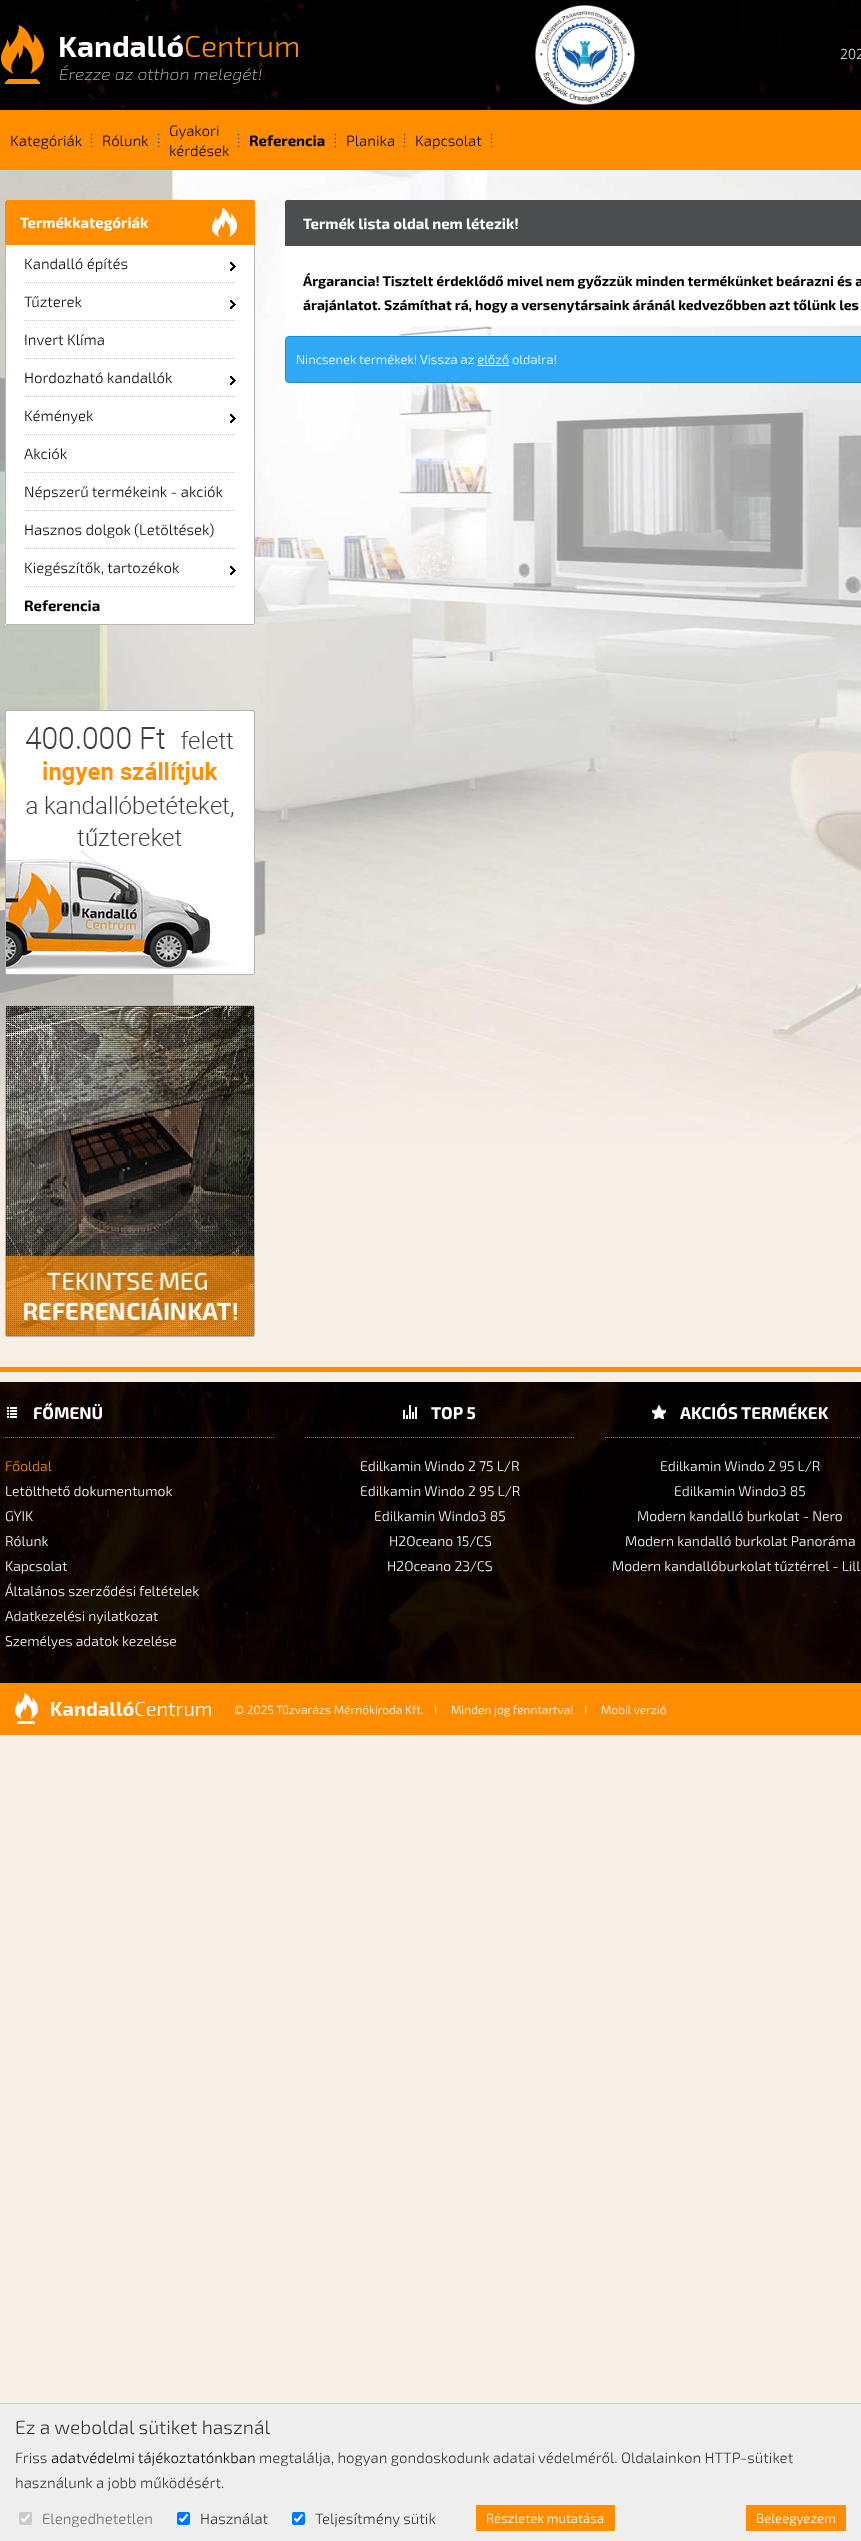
<svg xmlns="http://www.w3.org/2000/svg" width="861" height="2541">
<style>
.a{font:300 14px Open Sans;fill:#fff}
.b{font:300 15px 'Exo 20';fill:#000}
.c{font:bold 15px 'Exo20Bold';fill:#000}
.d{font:bold 15px 'Exo20Bold';fill:#fff}
.e{font:bold 14.05px 'Exo20Bold';fill:#000}
.f{font:300 13px 'Exo 20';fill:#fff}
.g{font:bold 17px 'Exo20Bold';fill:#fff}
.h{font:300 14px 'Exo 20';fill:#fe8d01}
.i{font:300 14px 'Exo 20';fill:#fff}
.j{font:300 12px 'Exo 20';fill:#fff}
.k{font:300 19.25px 'Exo 20';fill:#333}
.l{font:300 15px 'Exo 20';fill:#333}
.m{font:300 15px 'Exo 20';fill:#6b6b6b}
.n{font:300 13.25px 'Exo 20';fill:#fff}
</style>
<rect width="100%" height="100%" fill="#f5efe6"/>
<image href="1.png" x="0" y="170" width="861" height="974"/>
<image href="2.png" x="0" y="0" width="861" height="110"/>
<image href="3.png" x="1" y="25" width="297" height="59"/>
<image href="4.png" x="535" y="5" width="100" height="100"/>
<path fill="#fe8d01" d="M0 110h861v60H0z"/>
<image href="5.png" x="91" y="134" width="1" height="13"/>
<image href="5.png" x="158" y="134" width="1" height="13"/>
<image href="5.png" x="238" y="134" width="1" height="13"/>
<image href="5.png" x="335" y="134" width="1" height="13"/>
<image href="5.png" x="404" y="134" width="1" height="13"/>
<image href="5.png" x="491" y="134" width="1" height="13"/>
<path fill="#fff" d="M5 200h250v425H5z"/>
<path fill="#fe8d01" d="M7 200h246c1 0 2 1 2 2v43h-250v-43c0-1 1-2 2-2z"/>
<image href="6.png" x="212" y="208" width="25" height="29"/>
<path fill="#b6b6b6" d="M254 245h1v379H254z"/>
<path fill="#b6b6b6" d="M6 624h248v1H6z"/>
<path fill="#b6b6b6" d="M5 245h1v379H5z"/>
<image href="7.png" x="230" y="262" width="6" height="9"/>
<path fill="none" stroke="#c9c9c9" stroke-dasharray="1 1" d="M24 282.5h212"/>
<image href="7.png" x="230" y="300" width="6" height="9"/>
<path fill="none" stroke="#c9c9c9" stroke-dasharray="1 1" d="M24 320.5h212"/>
<path fill="none" stroke="#c9c9c9" stroke-dasharray="1 1" d="M24 358.5h212"/>
<image href="7.png" x="230" y="376" width="6" height="9"/>
<path fill="none" stroke="#c9c9c9" stroke-dasharray="1 1" d="M24 396.5h212"/>
<image href="7.png" x="230" y="414" width="6" height="9"/>
<path fill="none" stroke="#c9c9c9" stroke-dasharray="1 1" d="M24 434.5h212"/>
<path fill="none" stroke="#c9c9c9" stroke-dasharray="1 1" d="M24 472.5h212"/>
<path fill="none" stroke="#c9c9c9" stroke-dasharray="1 1" d="M24 510.5h212"/>
<path fill="none" stroke="#c9c9c9" stroke-dasharray="1 1" d="M24 548.5h212"/>
<image href="7.png" x="230" y="566" width="6" height="9"/>
<path fill="none" stroke="#c9c9c9" stroke-dasharray="1 1" d="M24 586.5h212"/>
<rect fill="none" stroke="#b6b6b6" x="5.5" y="710.5" width="249" height="264" rx="1.5"/>
<image href="8.png" x="6" y="711" width="248" height="263"/>
<rect fill="none" stroke="#b6b6b6" x="5.5" y="1005.5" width="249" height="331" rx="1.5"/>
<image href="9.png" x="6" y="1006" width="248" height="330"/>
<path fill="#4c4d4f" d="M287 200h574c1 0 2 1 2 2v44h-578v-44c0-1 1-2 2-2z"/>
<path fill="#fff" d="M285 246h576v80H285z"/>
<rect fill="#2fa9f6" stroke="#1b8ad0" x="285.5" y="336.5" width="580" height="46" rx="3.5"/>
<path fill="#fff" d="M477 365h32v1H477z"/>
<image href="10.png" x="0" y="1382" width="861" height="301"/>
<path fill="#fe8d01" d="M0 1367h861v5H0z"/>
<path fill="none" stroke="#818181" stroke-dasharray="1 1" d="M5 1437.5h270"/>
<image href="11.png" x="7" y="1407" width="10" height="11"/>
<path fill="none" stroke="#818181" stroke-dasharray="1 1" d="M305 1437.5h270"/>
<image href="12.png" x="403" y="1405" width="14" height="14"/>
<path fill="none" stroke="#818181" stroke-dasharray="1 1" d="M605 1437.5h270"/>
<image href="13.png" x="652" y="1405" width="14" height="14"/>
<path fill="#fe8d01" d="M0 1683h861v52H0z"/>
<image href="14.png" x="15" y="1693" width="196" height="31"/>
<path fill="#eee" d="M0 2404h861v137H0z"/>
<path fill="#ccc" d="M0 2403h861v1H0z"/>
<rect fill="#cacaca" x="19" y="2512" width="13" height="13" rx="2"/>
<path fill="none" stroke="#fff" stroke-width="2.1" d="M21.5 2518.5l2.5 2.5l5.5-6.5"/>
<rect fill="#0075ff" x="177" y="2512" width="13" height="13" rx="2"/>
<path fill="none" stroke="#fff" stroke-width="2.1" d="M179.5 2518.5l2.5 2.5l5.5-6.5"/>
<rect fill="#0075ff" x="292" y="2512" width="13" height="13" rx="2"/>
<path fill="none" stroke="#fff" stroke-width="2.1" d="M294.5 2518.5l2.5 2.5l5.5-6.5"/>
<path fill="#fe8d01" d="M476 2505h139v26H476z"/>
<path fill="#fe8d01" d="M746 2505h100v26H746z"/>
<text class="a" x="840" y="59">202</text>
<text class="b" x="10" y="146">Kategóriák</text>
<text class="b" x="102" y="146">Rólunk</text>
<text class="b" x="169" y="136">Gyakori</text>
<text class="b" x="169" y="156">kérdések</text>
<text class="c" x="249" y="146">Referencia</text>
<text class="b" x="346" y="146">Planika</text>
<text class="b" x="415" y="146">Kapcsolat</text>
<text class="d" x="20" y="228">Termékkategóriák</text>
<text class="b" x="24" y="269">Kandalló építés</text>
<text class="b" x="24" y="307">Tűzterek</text>
<text class="b" x="24" y="345">Invert Klíma</text>
<text class="b" x="24" y="383">Hordozható kandallók</text>
<text class="b" x="24" y="421">Kémények</text>
<text class="b" x="24" y="459">Akciók</text>
<text class="b" x="24" y="497">Népszerű termékeink - akciók</text>
<text class="b" x="24" y="535">Hasznos dolgok (Letöltések)</text>
<text class="b" x="24" y="573">Kiegészítők, tartozékok</text>
<text class="c" x="24" y="611">Referencia</text>
<text class="d" x="303" y="229">Termék lista oldal nem létezik!</text>
<text class="e" x="303" y="286">Árgarancia! Tisztelt érdeklődő mivel nem győzzük minden termékünket beárazni és a</text>
<text class="e" x="303" y="310">árajánlatot. Számíthat rá, hogy a versenytársaink áránál kedvezőbben azt tőlünk les</text>
<text class="f" x="296" y="364">Nincsenek termékek! Vissza az előző oldalra!</text>
<text class="g" x="33" y="1419">FŐMENÜ</text>
<text class="h" x="5" y="1471">Főoldal</text>
<text class="i" x="5" y="1496">Letölthető dokumentumok</text>
<text class="i" x="5" y="1521">GYIK</text>
<text class="i" x="5" y="1546">Rólunk</text>
<text class="i" x="5" y="1571">Kapcsolat</text>
<text class="i" x="5" y="1596">Általános szerződési feltételek</text>
<text class="i" x="5" y="1621">Adatkezelési nyilatkozat</text>
<text class="i" x="5" y="1646">Személyes adatok kezelése</text>
<text class="g" x="431" y="1419">TOP 5</text>
<text class="i" x="360" y="1471">Edilkamin Windo 2 75 L/R</text>
<text class="i" x="360" y="1496">Edilkamin Windo 2 95 L/R</text>
<text class="i" x="374" y="1521">Edilkamin Windo3 85</text>
<text class="i" x="389" y="1546">H2Oceano 15/CS</text>
<text class="i" x="387" y="1571">H2Oceano 23/CS</text>
<text class="g" x="680" y="1419">AKCIÓS TERMÉKEK</text>
<text class="i" x="660" y="1471">Edilkamin Windo 2 95 L/R</text>
<text class="i" x="674" y="1496">Edilkamin Windo3 85</text>
<text class="i" x="637" y="1521">Modern kandalló burkolat - Nero</text>
<text class="i" x="625" y="1546">Modern kandalló burkolat Panoráma</text>
<text class="i" x="612" y="1571">Modern kandallóburkolat tűztérrel - Lill</text>
<text class="j" xml:space="preserve" x="234" y="1714">© 2025 Tűzvarázs Mérnökiroda Kft.    I     Minden jog fenntartva!    I</text>
<text class="j" x="601" y="1714">Mobil verzió</text>
<text class="k" x="15" y="2434">Ez a weboldal sütiket használ</text>
<text class="l" x="15" y="2463">Friss</text>
<text class="b" x="51" y="2463">adatvédelmi tájékoztatónkban</text>
<text class="l" x="259" y="2463">megtalálja, hogyan gondoskodunk adatai védelméről. Oldalainkon HTTP-sütiket</text>
<text class="l" x="15" y="2488">használunk a jobb működésért.</text>
<text class="m" x="42" y="2524">Elengedhetetlen</text>
<text class="l" x="200" y="2524">Használat</text>
<text class="l" x="315" y="2524">Teljesítmény sütik</text>
<text class="n" x="486" y="2523">Részletek mutatása</text>
<text class="n" x="756" y="2523">Beleegyezem</text>
</svg>
